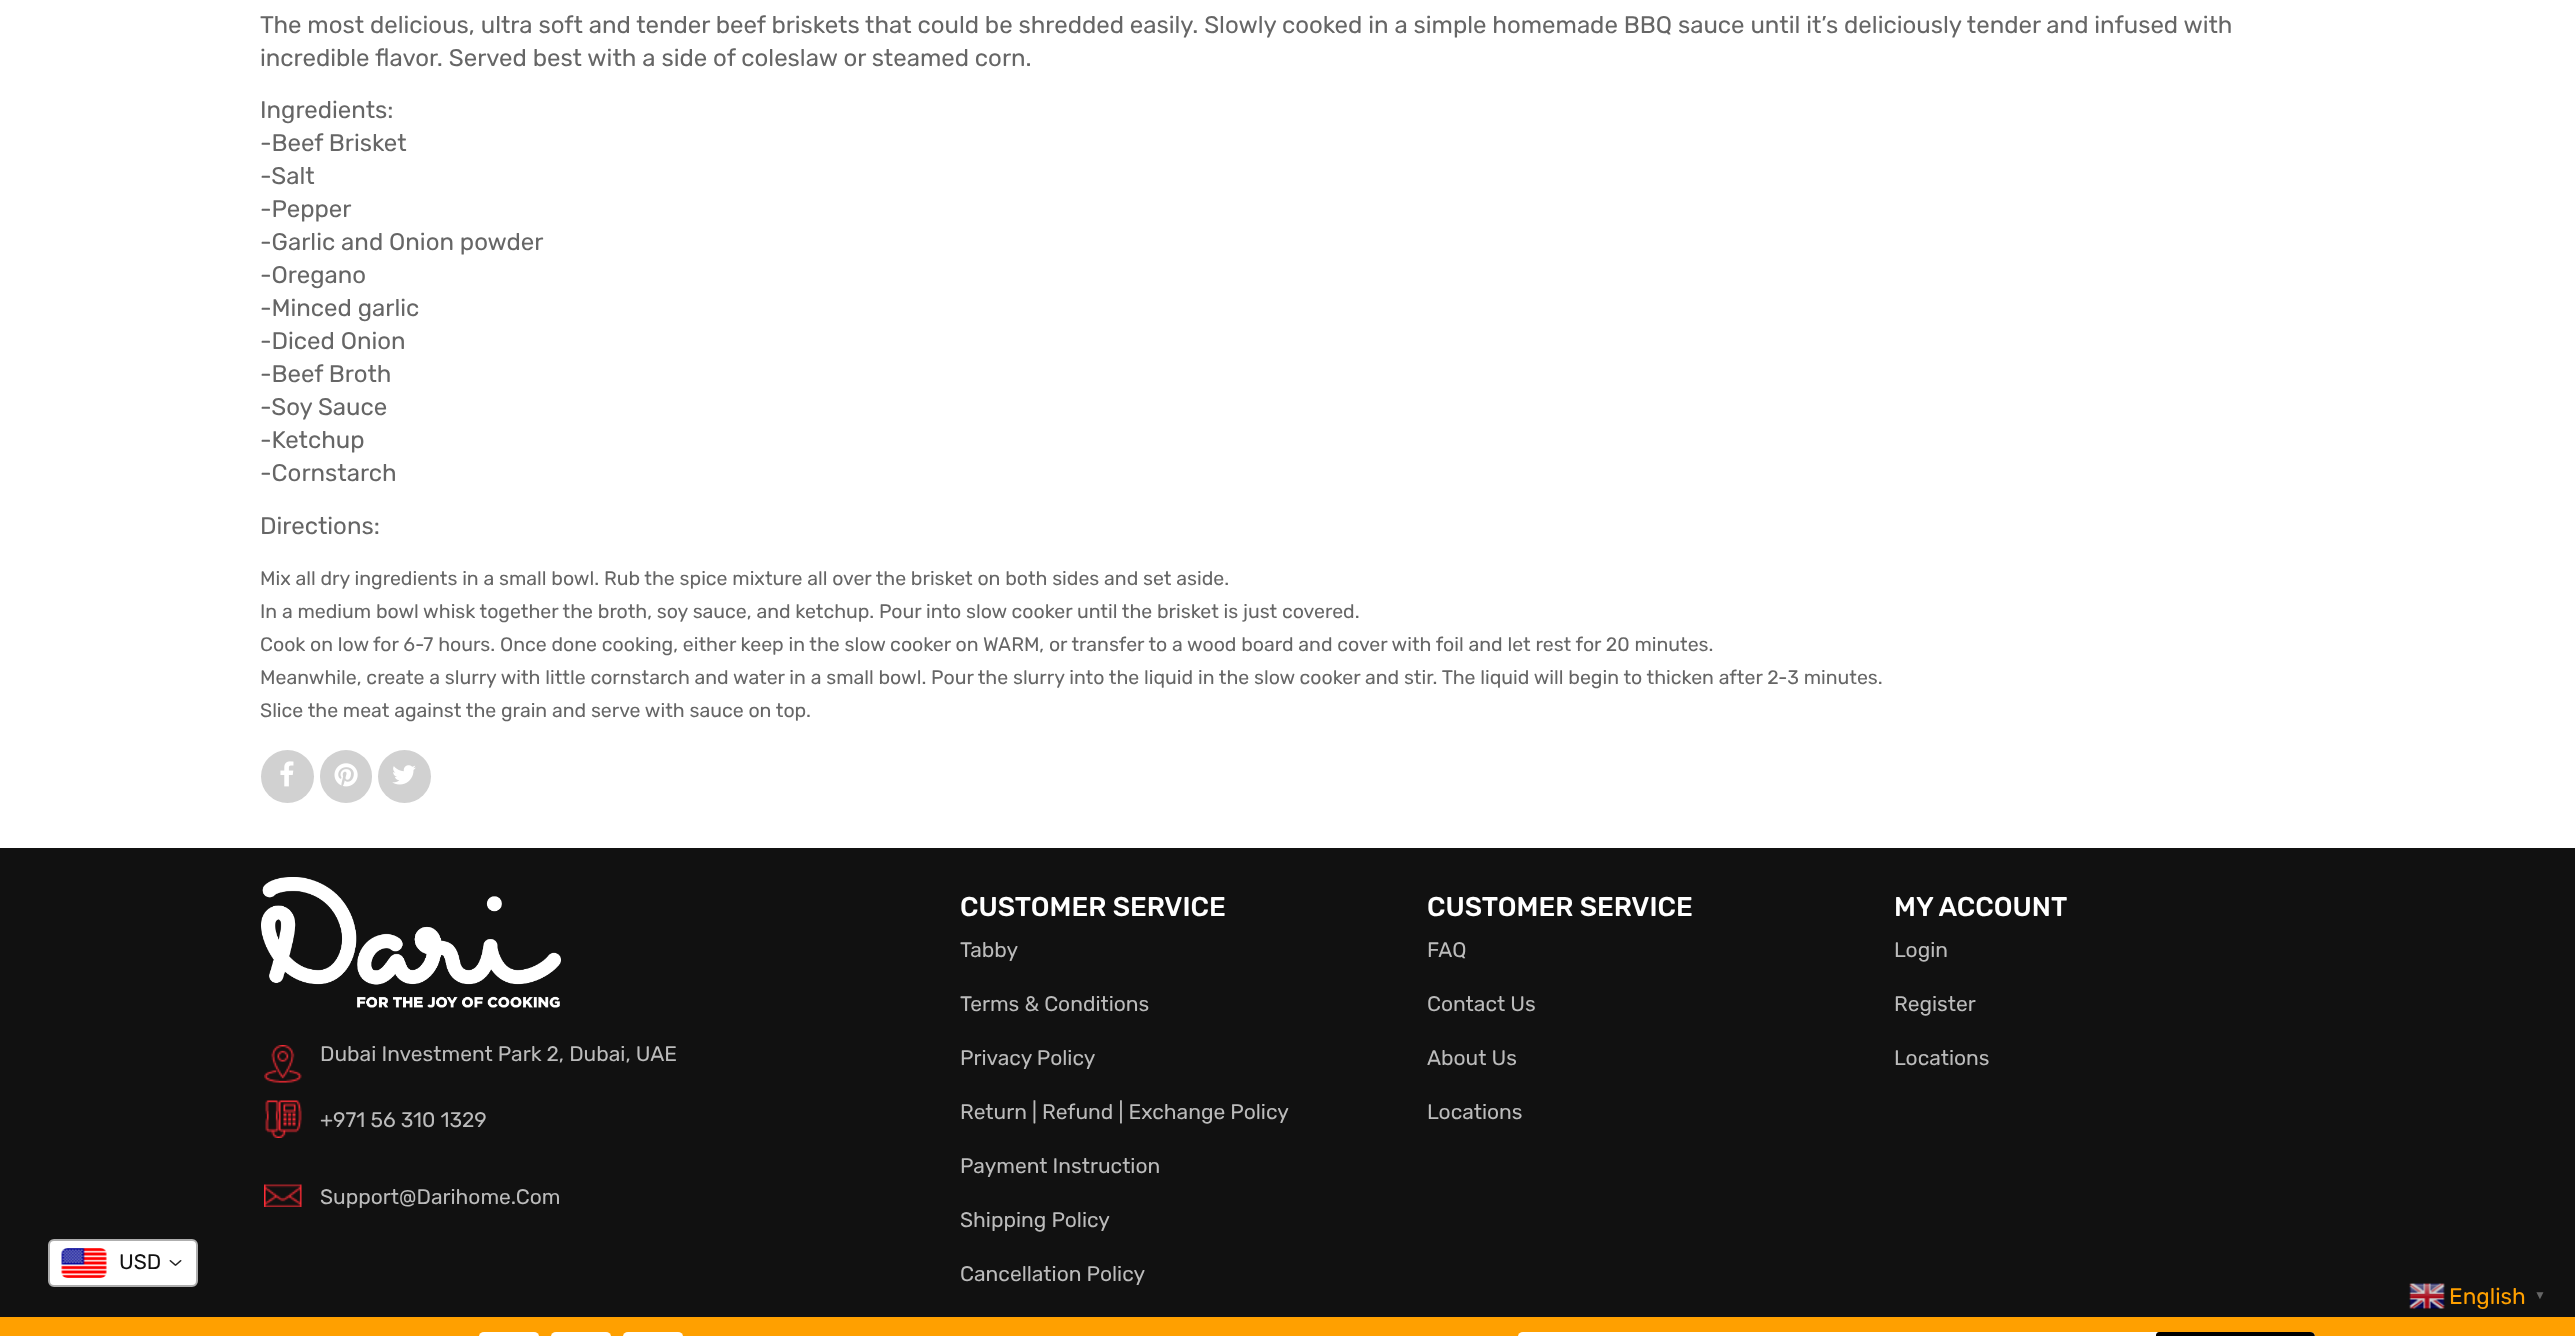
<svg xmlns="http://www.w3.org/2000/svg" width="2575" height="1336">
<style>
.a{font:21px Rubik;fill:#111}
.b{font:24px Rubik;fill:#666}
.c{font:19.5px Rubik;fill:#666}
.d{font:21px Rubik;fill:#bbb}
.e{font:500 27px Rubik;fill:#fff}
.f{font:22.5px Rubik;fill:#ffa000}
.g{font:bold 12px Liberation Serif;fill:#666}
</style>
<rect width="100%" height="100%" fill="#fff"/>
<path fill="#111" d="M0 848h2575v469H0z"/>
<rect fill="#fff" stroke="#aeaeae" stroke-width="2" x="49" y="1240" width="148" height="46" rx="5"/>
<image href="1.png" x="61" y="1248" width="46" height="30"/>
<image href="2.png" x="169" y="1260" width="13" height="6"/>
<circle fill="#d1d1d1" cx="287.5" cy="776.5" r="26.5"/>
<image href="3.png" x="280" y="761" width="14" height="26"/>
<rect fill="#d1d1d1" x="320" y="750" width="52" height="53" rx="26"/>
<image href="4.png" x="334" y="763" width="24" height="24"/>
<circle fill="#d1d1d1" cx="404.5" cy="776.5" r="26.5"/>
<image href="5.png" x="392" y="765" width="24" height="20"/>
<image href="6.png" x="261" y="877" width="300" height="131"/>
<image href="7.png" x="264" y="1045" width="38" height="38"/>
<image href="8.png" x="265" y="1100" width="37" height="38"/>
<image href="9.png" x="264" y="1184" width="38" height="23"/>
<path fill="#ffa000" d="M0 1317h2575v19H0z"/>
<rect fill="#fff" x="479" y="1332" width="60" height="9" rx="5"/>
<rect fill="#fff" x="551" y="1332" width="60" height="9" rx="5"/>
<rect fill="#fff" x="623" y="1332" width="60" height="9" rx="5"/>
<rect fill="#fff" x="1518" y="1332" width="797" height="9" rx="5"/>
<path fill="#000" d="M2159 1332h151c3 0 5 2 5 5v-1c0 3-2 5-5 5h-151c-1.5 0-3-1.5-3-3v-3c0-1.5 1.5-3 3-3z"/>
<image href="10.png" x="2409" y="1283" width="36" height="26"/>
<text class="a" x="119" y="1269">USD</text>
<text class="b" x="260" y="33">The most delicious, ultra soft and tender beef briskets that could be shredded easily. Slowly cooked in a simple homemade BBQ sauce until it’s deliciously tender and infused with</text>
<text class="b" x="260" y="66">incredible flavor. Served best with a side of coleslaw or steamed corn.</text>
<text class="b" x="260" y="118">Ingredients:</text>
<text class="b" x="260" y="151">-Beef Brisket</text>
<text class="b" x="260" y="184">-Salt</text>
<text class="b" x="260" y="217">-Pepper</text>
<text class="b" x="260" y="250">-Garlic and Onion powder</text>
<text class="b" x="260" y="283">-Oregano</text>
<text class="b" x="260" y="316">-Minced garlic</text>
<text class="b" x="260" y="349">-Diced Onion</text>
<text class="b" x="260" y="382">-Beef Broth</text>
<text class="b" x="260" y="415">-Soy Sauce</text>
<text class="b" x="260" y="448">-Ketchup</text>
<text class="b" x="260" y="481">-Cornstarch</text>
<text class="b" x="260" y="534">Directions:</text>
<text class="c" x="260" y="585">Mix all dry ingredients in a small bowl. Rub the spice mixture all over the brisket on both sides and set aside.</text>
<text class="c" x="260" y="618">In a medium bowl whisk together the broth, soy sauce, and ketchup. Pour into slow cooker until the brisket is just covered.</text>
<text class="c" x="260" y="651">Cook on low for 6-7 hours. Once done cooking, either keep in the slow cooker on WARM, or transfer to a wood board and cover with foil and let rest for 20 minutes.</text>
<text class="c" x="260" y="684">Meanwhile, create a slurry with little cornstarch and water in a small bowl. Pour the slurry into the liquid in the slow cooker and stir. The liquid will begin to thicken after 2-3 minutes.</text>
<text class="c" x="260" y="717">Slice the meat against the grain and serve with sauce on top.</text>
<text class="d" x="320" y="1061">Dubai Investment Park 2, Dubai, UAE</text>
<text class="d" x="320" y="1127">+971 56 310 1329</text>
<text class="d" x="320" y="1204">Support@Darihome.Com</text>
<text class="e" x="960" y="916">CUSTOMER SERVICE</text>
<text class="d" x="960" y="957">Tabby</text>
<text class="d" x="960" y="1011">Terms &amp; Conditions</text>
<text class="d" x="960" y="1065">Privacy Policy</text>
<text class="d" x="960" y="1119">Return | Refund | Exchange Policy</text>
<text class="d" x="960" y="1173">Payment Instruction</text>
<text class="d" x="960" y="1227">Shipping Policy</text>
<text class="d" x="960" y="1281">Cancellation Policy</text>
<text class="e" x="1427" y="916">CUSTOMER SERVICE</text>
<text class="d" x="1427" y="957">FAQ</text>
<text class="d" x="1427" y="1011">Contact Us</text>
<text class="d" x="1427" y="1065">About Us</text>
<text class="d" x="1427" y="1119">Locations</text>
<text class="e" x="1894" y="916">MY ACCOUNT</text>
<text class="d" x="1894" y="957">Login</text>
<text class="d" x="1894" y="1011">Register</text>
<text class="d" x="1894" y="1065">Locations</text>
<text class="f" x="2449" y="1304">English</text>
<text class="g" x="2534" y="1299">▼</text>
</svg>
